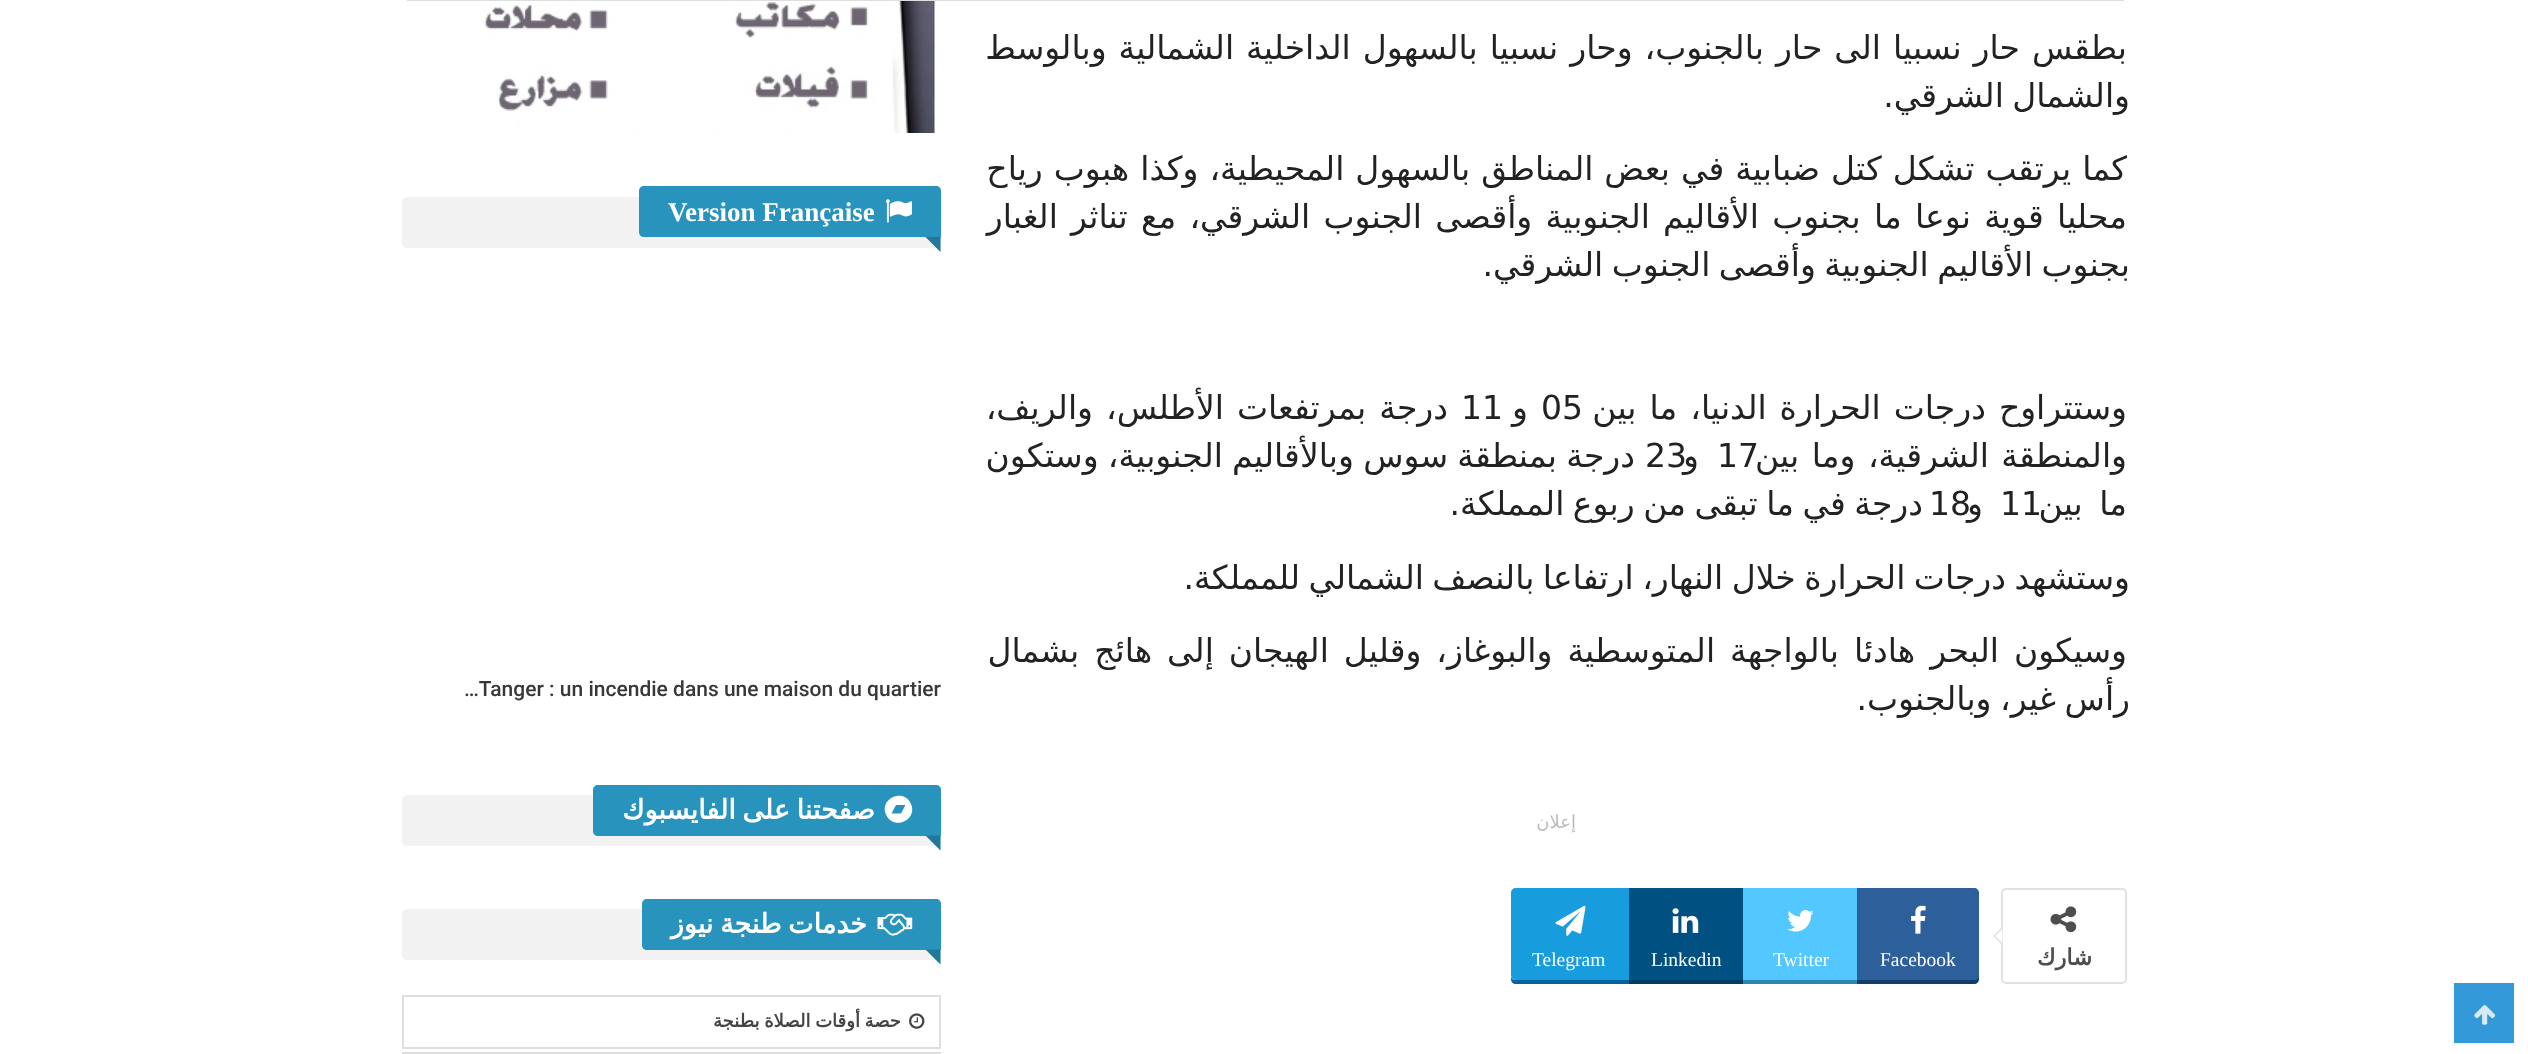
<svg xmlns="http://www.w3.org/2000/svg" width="2528" height="1054">
<style>
.a{font:33px DejaVu Sans;direction:rtl;fill:#222}
.b{font:33px DejaVu Sans;fill:#222}
.c{font:18px DejaVu Sans;direction:rtl;fill:#bbb}
.d{font:bold 22.5px DejaVu Sans;direction:rtl;fill:#4d4d4d}
.e{font:19.5px Liberation Serif;fill:#fff}
.f{font:bold 27px Liberation Serif;fill:#fff}
.g{font:500 21px Roboto;fill:#383838}
.h{font:bold 27px DejaVu Sans;direction:rtl;fill:#fff}
.i{font:bold 18px DejaVu Sans;direction:rtl;fill:#444}
</style>
<rect width="100%" height="100%" fill="#fff"/>
<path fill="#33333317" filter="blur(1.5px)" d="M2454 984h60v60H2454z"/>
<path fill="#3399d8" d="M2454 983h60v60H2454z"/>
<image href="1.png" x="2474" y="1005" width="22" height="20"/>
<path fill="#dedede" d="M407 0h1717v1H407z"/>
<rect fill="none" stroke="#e2e2e2" stroke-width="2" x="2002" y="889" width="124" height="94" rx="4"/>
<image href="2.png" x="2050" y="906" width="27" height="27"/>
<path fill="#d7d7d7" d="M2002.5 927v18l-9-9z"/>
<path fill="#fff" d="M2002.5 928.5v15l-7.5-7.5z"/>
<path fill="#133d6d" d="M1857 980v4h117c3 0 5-2 5-5v-81l-1-2v79c0 2-2 5-4 5z"/>
<path fill="#2d5f9a" d="M1857 888h117c3 0 5 2 5 5v82c0 3-2 5-5 5h-117z"/>
<image href="3.png" x="1911" y="905" width="15" height="29"/>
<path fill="#2e86b1" d="M1743 980h114v4H1743z"/>
<path fill="#53c7ff" d="M1743 888h114v92H1743z"/>
<image href="4.png" x="1787" y="910" width="27" height="22"/>
<path fill="#013c61" d="M1629 980h114v4H1629z"/>
<path fill="#005182" d="M1629 888h114v92H1629z"/>
<image href="5.png" x="1672" y="908" width="27" height="25"/>
<path fill="#0a629a" d="M1511 977v2c0 3 2 5 5 5h113v-4h-114c-2 0-3-1-4-3z"/>
<path fill="#179cde" d="M1516 888h113v92h-113c-3 0-5-2-5-5v-82c0-3 2-5 5-5z"/>
<image href="6.png" x="1555" y="905" width="31" height="31"/>
<image href="7.png" x="484" y="1" width="451" height="132"/>
<rect fill="#f2f2f2" x="402" y="197" width="539" height="51" rx="5"/>
<path fill="#2894be" d="M644 186h292c3 0 5 2 5 5v46h-297c-3 0-5-2-5-5v-41c0-3 2-5 5-5z"/>
<image href="8.png" x="886" y="199" width="26" height="24"/>
<path fill="#2894be" d="M925.5 237h15v15z"/>
<path fill="#0000002e" d="M925.5 237h15v15z"/>
<rect fill="#f2f2f2" x="402" y="795" width="539" height="51" rx="5"/>
<path fill="#2894be" d="M598 785h338c3 0 5 2 5 5v46h-343c-3 0-5-2-5-5v-41c0-3 2-5 5-5z"/>
<path fill="#fff" d="M901 813.5l4.5-8.5h-9.5l-4.5 8.5zm10-9.5c7 16.5-18 27-25 10.5c-7-16 18-27 25-10.5z"/>
<path fill="#2894be" d="M925.5 835.5h15v15z"/>
<path fill="#0000002e" d="M925.5 835.5h15v15z"/>
<rect fill="#f2f2f2" x="402" y="909" width="539" height="51" rx="5"/>
<path fill="#2894be" d="M647 899h289c3 0 5 2 5 5v46h-294c-3 0-5-2-5-5v-41c0-3 2-5 5-5z"/>
<image href="9.png" x="877" y="913" width="36" height="23"/>
<path fill="#2894be" d="M925.5 949.5h15v15z"/>
<path fill="#0000002e" d="M925.5 949.5h15v15z"/>
<path fill="none" stroke="#dedede" stroke-width="2" d="M403 996h537v52H403z"/>
<image href="10.png" x="909" y="1013" width="16" height="16"/>
<path fill="none" stroke="#dedede" stroke-width="2" d="M403 1053h537v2H403z"/>
<text class="a" x="2127" y="59" word-spacing="1.5">بطقس حار نسبيا الى حار بالجنوب، وحار نسبيا بالسهول الداخلية الشمالية وبالوسط</text>
<text class="a" x="2130" y="107" word-spacing="-2">والشمال الشرقي.</text>
<text class="a" x="2127" y="180" word-spacing="0.5">كما يرتقب تشكل كتل ضبابية في بعض المناطق بالسهول المحيطية، وكذا هبوب رياح</text>
<text class="a" x="2127" y="228" word-spacing="2.75">محليا قوية نوعا ما بجنوب الأقاليم الجنوبية وأقصى الجنوب الشرقي، مع تناثر الغبار</text>
<text class="a" x="2130" y="276" word-spacing="-2">بجنوب الأقاليم الجنوبية وأقصى الجنوب الشرقي.</text>
<text class="a" x="2127" y="419" word-spacing="2.5">وستتراوح درجات الحرارة الدنيا، ما بين</text>
<text class="b" x="1541" y="419">05</text>
<text class="a" x="1528" y="419">و</text>
<text class="b" x="1461" y="419">11</text>
<text class="a" x="1448" y="419" word-spacing="2.5">درجة بمرتفعات الأطلس، والريف،</text>
<text class="a" x="2127" y="467" word-spacing="2">والمنطقة الشرقية، وما بين</text>
<text class="b" x="1717" y="467">17</text>
<text class="b" x="1645" y="467">23</text>
<text class="a" x="1699" y="467">و</text>
<text class="a" x="1635" y="467" word-spacing="-1.25">درجة بمنطقة سوس وبالأقاليم الجنوبية، وستكون</text>
<text class="a" x="2127" y="515" word-spacing="6">ما بين</text>
<text class="b" x="2000" y="515">11</text>
<text class="a" x="1923" y="515" word-spacing="-2">درجة في ما تبقى من ربوع المملكة.</text>
<text class="b" x="1929" y="515">18</text>
<text class="a" x="1983" y="515">و</text>
<text class="a" x="2130" y="589" word-spacing="-2">وستشهد درجات الحرارة خلال النهار، ارتفاعا بالنصف الشمالي للمملكة.</text>
<text class="a" x="2127" y="662" word-spacing="4.5">وسيكون البحر هادئا بالواجهة المتوسطية والبوغاز، وقليل الهيجان إلى هائج بشمال</text>
<text class="a" x="2130" y="710" word-spacing="-2">رأس غير، وبالجنوب.</text>
<text class="c" x="1576" y="828">إعلان</text>
<text class="d" x="2092" y="965">شارك</text>
<text class="e" x="1880" y="966">Facebook</text>
<text class="e" x="1773" y="966">Twitter</text>
<text class="e" x="1651" y="966">Linkedin</text>
<text class="e" x="1532" y="966">Telegram</text>
<text class="f" x="668" y="221">Version Française</text>
<text class="g" x="464" y="696">…Tanger : un incendie dans une maison du quartier</text>
<text class="h" x="875" y="819" word-spacing="-2">صفحتنا على الفايسبوك</text>
<text class="h" x="867" y="933" word-spacing="-2">خدمات طنجة نيوز</text>
<text class="i" x="901" y="1027" word-spacing="-1">حصة أوقات الصلاة بطنجة</text>
</svg>
